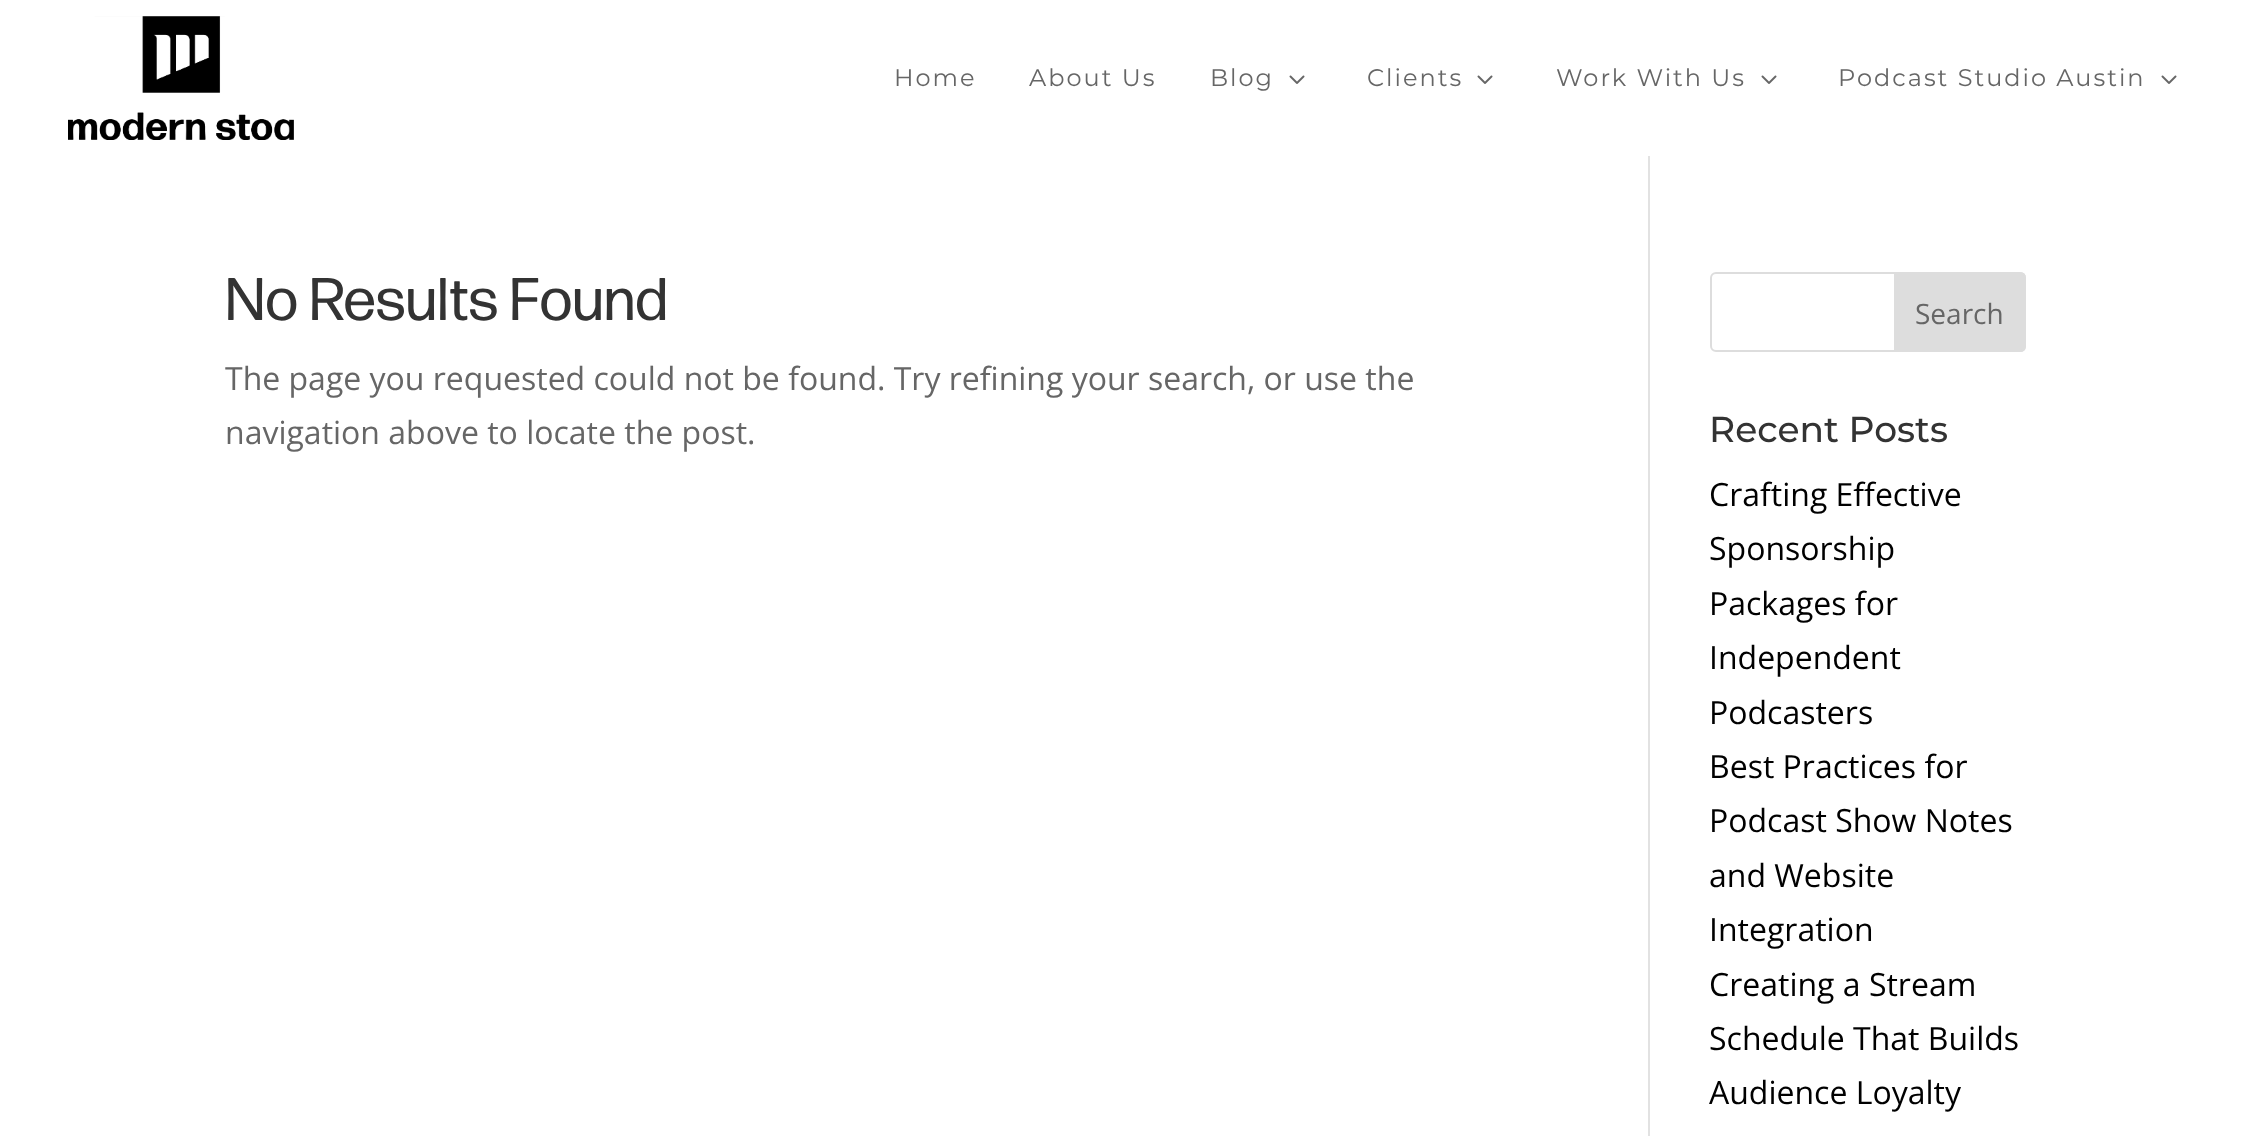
<svg xmlns="http://www.w3.org/2000/svg" width="2250" height="1136">
<style>
.a{font:24px Montserrat;letter-spacing:2px;fill:#666}
.b{font:60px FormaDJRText;fill:#333}
.c{font:32px Open Sans;fill:#666}
.d{font:28px Open Sans;fill:#666}
.e{font:500 36px Montserrat;fill:#333}
.f{font:32px Open Sans;fill:#000}
</style>
<rect width="100%" height="100%" fill="#fff"/>
<image href="1.png" x="68" y="16" width="226" height="124"/>
<image href="2.png" x="1289" y="75" width="16" height="9"/>
<image href="2.png" x="1477" y="75" width="16" height="9"/>
<image href="2.png" x="1761" y="75" width="16" height="9"/>
<image href="2.png" x="2161" y="75" width="16" height="9"/>
<path fill="#e2e2e2" d="M1648 156h2v980H1648z"/>
<rect fill="none" stroke="#ddd" stroke-width="2" x="1711" y="273" width="314" height="78" rx="5"/>
<path fill="#ddd" stroke="#ddd" stroke-width="2" d="M1895 273h125c3 0 5 2 5 5v68c0 3-2 5-5 5h-125z"/>
<text class="a" x="894" y="86">Home</text>
<text class="a" x="1029" y="86">About Us</text>
<text class="a" x="1210" y="86">Blog</text>
<text class="a" x="1367" y="86">Clients</text>
<text class="a" x="1556" y="86">Work With Us</text>
<text class="a" x="1838" y="86">Podcast Studio Austin</text>
<text class="b" x="225" y="320">No Results Found</text>
<text class="c" x="225" y="390">The page you requested could not be found. Try refining your search, or use the</text>
<text class="c" x="225" y="444">navigation above to locate the post.</text>
<text class="d" x="1915" y="324">Search</text>
<text class="e" x="1709" y="442">Recent Posts</text>
<text class="f" x="1709" y="506">Crafting Effective</text>
<text class="f" x="1709" y="560">Sponsorship</text>
<text class="f" x="1709" y="615">Packages for</text>
<text class="f" x="1709" y="669">Independent</text>
<text class="f" x="1709" y="724">Podcasters</text>
<text class="f" x="1709" y="778">Best Practices for</text>
<text class="f" x="1709" y="832">Podcast Show Notes</text>
<text class="f" x="1709" y="887">and Website</text>
<text class="f" x="1709" y="941">Integration</text>
<text class="f" x="1709" y="996">Creating a Stream</text>
<text class="f" x="1709" y="1050">Schedule That Builds</text>
<text class="f" x="1709" y="1104">Audience Loyalty</text>
</svg>
